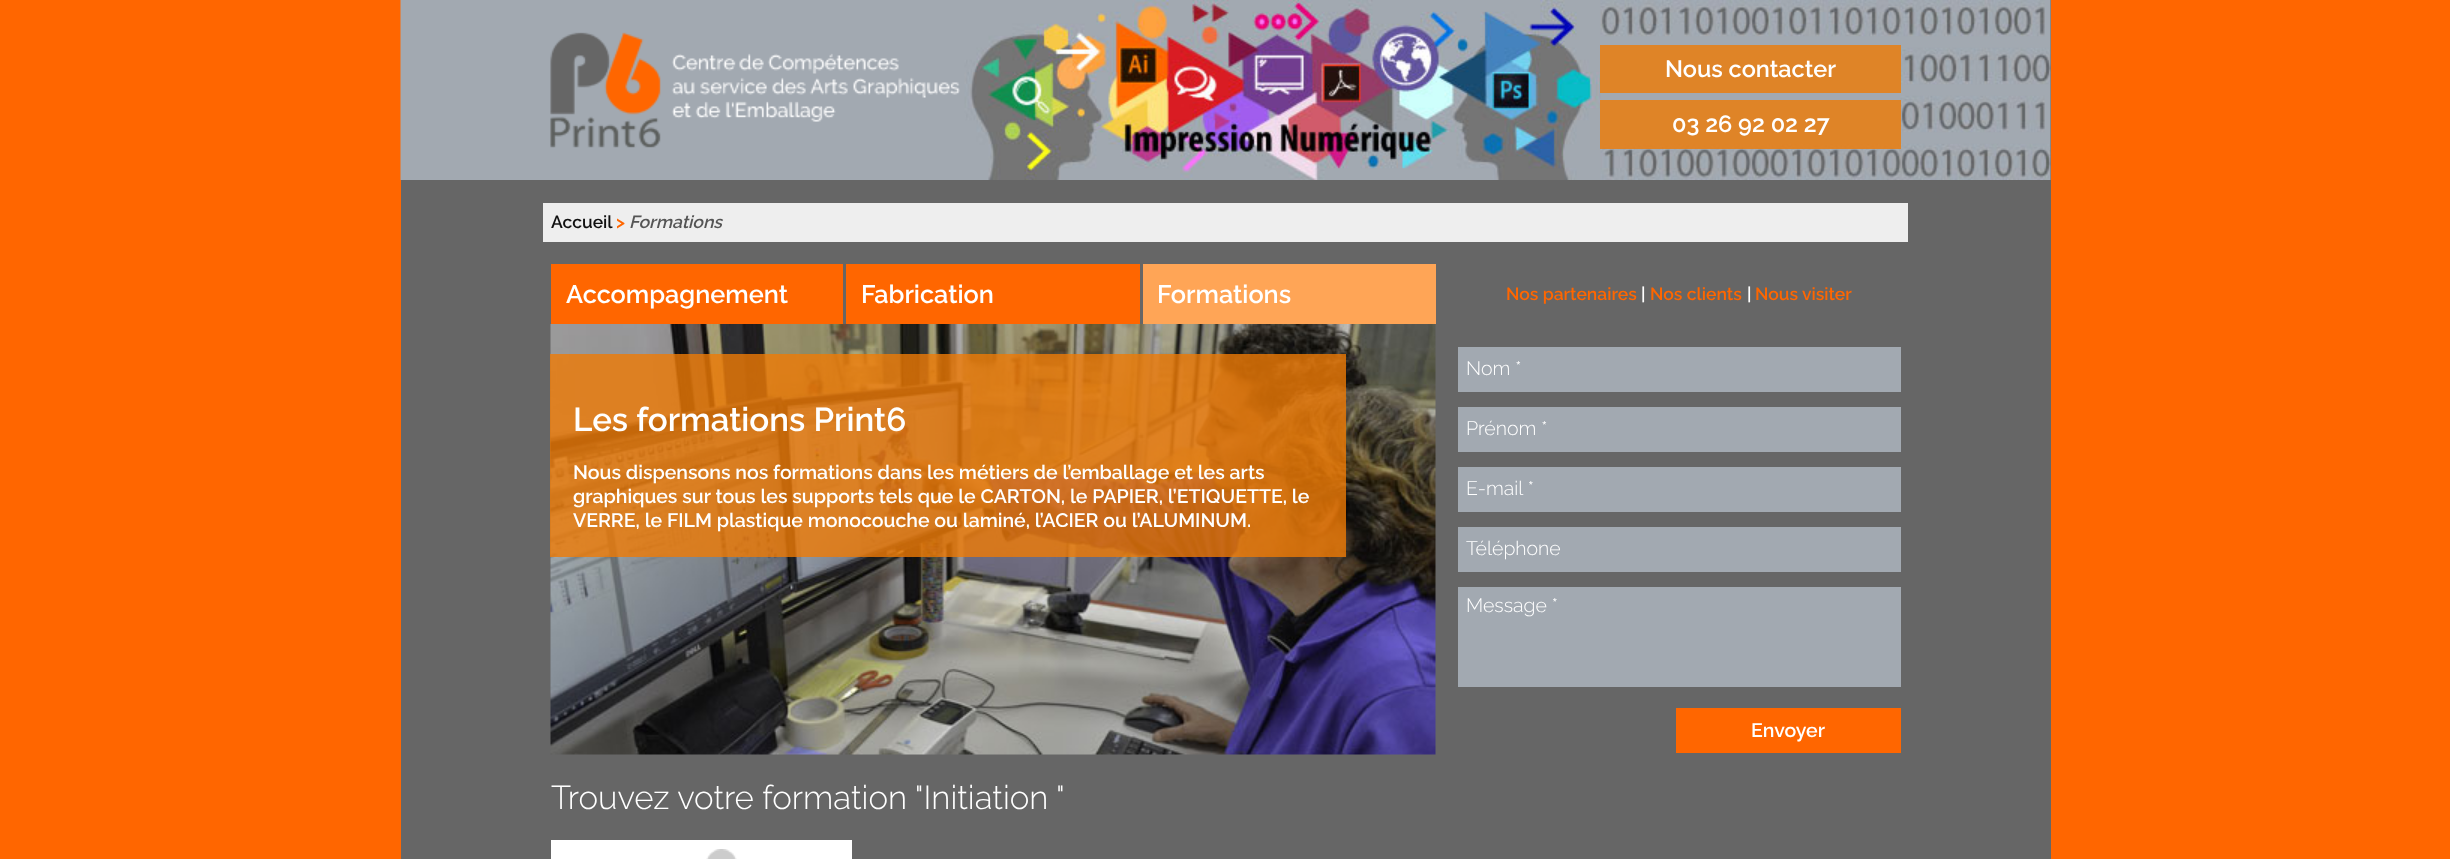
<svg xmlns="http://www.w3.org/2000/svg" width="2450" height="859">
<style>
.a{font:600 23.5px Raleway;fill:#fff}
.b{font:600 17.5px Raleway;fill:#111}
.c{font:600 17.5px Raleway;fill:#f60}
.d{font:italic 600 17.5px Raleway;fill:#555}
.e{font:600 25.25px Raleway;fill:#fff}
.f{font:600 33.1px Raleway;fill:#fff}
.g{font:600 19.5px Raleway;fill:#fff}
.h{font:600 17.5px Raleway;fill:#fff}
.i{font:300 19.5px Raleway;fill:#fff}
.j{font:300 33.1px Raleway;fill:#fff}
</style>
<rect width="100%" height="100%" fill="#f60"/>
<path fill="#666" d="M401 0h1650v859H401z"/>
<image href="1.png" x="400" y="0" width="1651" height="180"/>
<image href="2.png" x="550" y="32" width="410" height="116"/>
<path fill="#ef7a05cc" d="M1600 45h301v48H1600z"/>
<path fill="#ef7a05cc" d="M1600 100h301v49H1600z"/>
<path fill="#eee" d="M543 203h1365v39H543z"/>
<path fill="#f60" d="M551 264h292v60H551z"/>
<path fill="#f60" d="M846 264h294v60H846z"/>
<path fill="#ffa556" d="M1143 264h293v60H1143z"/>
<image href="3.png" x="550" y="324" width="886" height="431"/>
<path fill="#ef7a05cc" d="M550 354h796v203H550z"/>
<path fill="#a2a9b1" d="M1458 347h443v45H1458z"/>
<path fill="#a2a9b1" d="M1458 407h443v45H1458z"/>
<path fill="#a2a9b1" d="M1458 467h443v45H1458z"/>
<path fill="#a2a9b1" d="M1458 527h443v45H1458z"/>
<path fill="#a2a9b1" d="M1458 587h443v100H1458z"/>
<path fill="#f60" d="M1676 708h225v45H1676z"/>
<path fill="#fff" d="M551 840h301v19H551z"/>
<image href="4.png" x="706" y="849" width="31" height="10"/>
<text class="a" x="1665" y="77">Nous contacter</text>
<text class="a" x="1672" y="132">03 26 92 02 27</text>
<text class="b" x="551" y="228">Accueil</text>
<text class="c" x="616" y="228">&gt;</text>
<text class="d" x="629" y="228">Formations</text>
<text class="e" x="566" y="303">Accompagnement</text>
<text class="e" x="861" y="303">Fabrication</text>
<text class="e" x="1157" y="303">Formations</text>
<text class="f" x="573" y="431">Les formations Print6</text>
<text class="g" x="573" y="479">Nous dispensons nos formations dans les métiers de l’emballage et les arts</text>
<text class="g" x="573" y="503">graphiques sur tous les supports tels que le CARTON, le PAPIER, l’ETIQUETTE, le</text>
<text class="g" x="573" y="527">VERRE, le FILM plastique monocouche ou laminé, l’ACIER ou l’ALUMINUM.</text>
<text class="c" x="1506" y="300">Nos partenaires</text>
<text class="h" x="1641" y="300">|</text>
<text class="c" x="1650" y="300">Nos clients</text>
<text class="h" x="1747" y="300">|</text>
<text class="c" x="1755" y="300">Nous visiter</text>
<text class="i" x="1466" y="375">Nom *</text>
<text class="i" x="1466" y="435">Prénom *</text>
<text class="i" x="1466" y="495">E-mail *</text>
<text class="i" x="1466" y="555">Téléphone</text>
<text class="i" x="1466" y="612">Message *</text>
<text class="g" x="1751" y="737">Envoyer</text>
<text class="j" x="551" y="809">Trouvez votre formation "Initiation "</text>
</svg>
